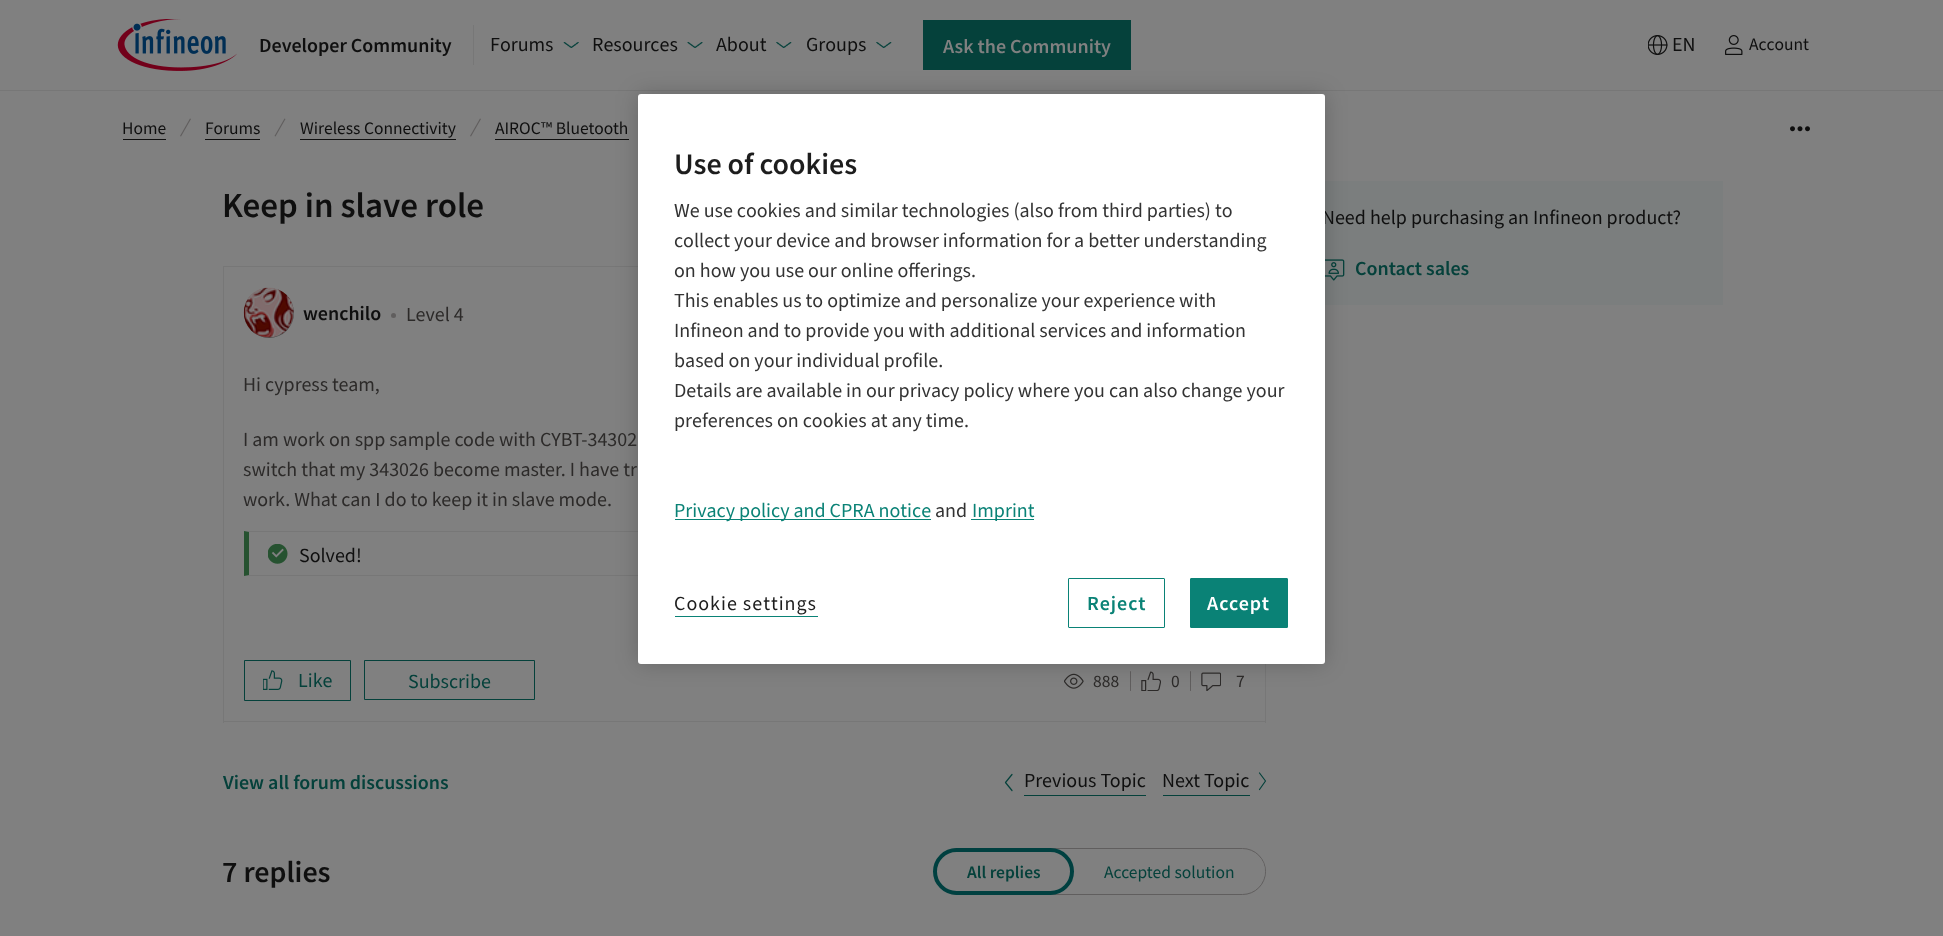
<svg xmlns="http://www.w3.org/2000/svg" width="1943" height="936">
<style>
.a{font:600 20px Source Sans Pro;fill:#0f0f0f}
.b{font:20px 'Source Sans 3';fill:#0f0f0f}
.c{font:600 20px Source Sans Pro;fill:#808080}
.d{font:17.5px 'Source Sans 3';fill:#0f0f0f}
.e{font:17.5px Source Sans Pro;fill:#0f0f0f}
.f{font:600 35px Source Sans Pro;fill:#0f0f0f}
.g{font:20px Source Sans Pro;fill:#2c2a29}
.h{font:20px Source Sans Pro;fill:#0f0f0f}
.i{font:20px 'Source Sans 3';fill:#05413b}
.j{font:20px Source Sans Pro;fill:#05413b}
.k{font:17.5px Source Sans Pro;fill:#2c2a29}
.l{font:600 20px Source Sans Pro;fill:#05413b}
.m{font:600 30px Source Sans Pro;fill:#0f0f0f}
.n{font:600 17.5px Source Sans Pro;fill:#05413b}
.o{font:17.5px Source Sans Pro;fill:#05413b}
.p{font:600 30px Source Sans Pro;fill:#1d1d1d}
.q{font:20px 'Source Sans 3';fill:#333}
.r{font:20px 'Source Sans 3';fill:#0a8276}
.s{font:20px 'Source Sans 3';letter-spacing:1px;fill:#1d1d1d}
.t{font:600 20px Source Sans Pro;letter-spacing:1px;fill:#0a8276}
.u{font:600 20px Source Sans Pro;letter-spacing:1px;fill:#fff}
</style>
<rect width="100%" height="100%" fill="#808080"/>
<path fill="#777" d="M0 90h1943v1H0z"/>
<image href="1.png" x="117" y="19" width="120" height="52"/>
<path fill="#777" d="M473 25h1v40H473z"/>
<image href="2.png" x="563" y="42" width="16" height="6"/>
<image href="3.png" x="687" y="42" width="16" height="6"/>
<image href="4.png" x="776" y="42" width="16" height="6"/>
<image href="4.png" x="876" y="42" width="16" height="6"/>
<path fill="#05413b" d="M923 20h208v50H923z"/>
<image href="5.png" x="1648" y="35" width="20" height="20"/>
<image href="6.png" x="1725" y="35" width="18" height="20"/>
<path fill="#0f0f0f" d="M123 139h43v1H123z"/>
<path fill="#605e5e" d="M190 118.5l1 .5l-10 17.5l-1-.5z"/>
<path fill="#0f0f0f" d="M205 139h55v1H205z"/>
<path fill="#605e5e" d="M284.5 118.5l1 .5l-10 17.5l-1-.5z"/>
<path fill="#0f0f0f" d="M300 139h156v1H300z"/>
<path fill="#605e5e" d="M480 118.5l1 .5l-10 17.5l-1-.5z"/>
<path fill="#0f0f0f" d="M495 139h134v1H495z"/>
<image href="7.png" x="1790" y="126" width="20" height="6"/>
<path fill="#777" d="M223 266h415v1H223z"/>
<path fill="#777" d="M223 266h1v374H223z"/>
<rect fill="#4d4d4d" filter="blur(0.5px)" x="244" y="288" width="50" height="50" rx="25"/>
<image href="8.png" x="243" y="287" width="51" height="51"/>
<circle fill="#605e5e" cx="393.5" cy="315.5" r="2.5"/>
<path fill="#777" d="M244 531h1001l-1 1h-995z"/>
<path fill="#777" d="M1245 576h-1001l5-1h995z"/>
<path fill="#265230" d="M244 576v-45l5 1v43z"/>
<image href="9.png" x="268" y="544" width="20" height="20"/>
<path fill="#777" d="M1265 664h1v59H1265z"/>
<path fill="#777" d="M223 721h1043v1H223z"/>
<path fill="#777" d="M223 640h1v83H223z"/>
<path fill="none" stroke="#05413b" d="M244.5 660.5h106v40H244.5z"/>
<image href="10.png" x="263" y="670" width="20" height="20"/>
<path fill="none" stroke="#05413b" d="M364.5 660.5h170v39H364.5z"/>
<image href="11.png" x="1064" y="673" width="20" height="16"/>
<rect fill="#605e5e" x="1130" y="671" width="1" height="20" rx="0.5"/>
<image href="12.png" x="1141" y="671" width="20" height="20"/>
<rect fill="#605e5e" x="1190" y="671" width="1" height="20" rx="0.5"/>
<image href="13.png" x="1201" y="672" width="20" height="19"/>
<path fill="none" stroke="#05413b" stroke-width="1.2" stroke-linecap="round" stroke-linejoin="round" d="M1012 774.5l-6.5 8l6.5 8"/>
<path fill="#05413b" d="M1024 795h122v1H1024z"/>
<path fill="#05413b" d="M1163 795h87v1H1163z"/>
<path fill="none" stroke="#05413b" stroke-width="1.2" stroke-linecap="round" stroke-linejoin="round" d="M1259.5 773l6 8l-6 8.5"/>
<rect fill="none" stroke="#605e5e" x="935.5" y="848.5" width="330" height="46" rx="23"/>
<rect fill="none" stroke="#004040" stroke-width="4" x="935" y="850" width="137" height="43" rx="21.5"/>
<rect fill="#808080" x="1074" y="851" width="191" height="40" rx="20"/>
<path fill="#7b7e7e" d="M1325 181h398v124H1325z"/>
<image href="14.png" x="1325" y="259" width="20" height="22"/>
<rect fill="#00000033" filter="blur(11px)" x="638" y="94" width="687" height="570" rx="3"/>
<text class="a" x="259" y="52">Developer Community</text>
<text class="b" x="490" y="51">Forums</text>
<text class="b" x="592" y="51">Resources</text>
<text class="b" x="716" y="51">About</text>
<text class="b" x="806" y="51">Groups</text>
<text class="c" x="943" y="53">Ask the Community</text>
<text class="b" x="1672" y="51">EN</text>
<text class="d" x="1749" y="50">Account</text>
<text class="e" x="122" y="134">Home</text>
<text class="e" x="205" y="134">Forums</text>
<text class="e" x="300" y="134">Wireless Connectivity</text>
<text class="e" x="495" y="134">AIROC™ Bluetooth</text>
<text class="f" x="222" y="217">Keep in slave role</text>
<text class="a" x="303" y="320">wenchilo</text>
<text class="g" x="406" y="321">Level 4</text>
<text class="g" x="243" y="391">Hi cypress team,</text>
<text class="g" x="243" y="446">I am work on spp sample code with CYBT-34302</text>
<text class="g" x="243" y="476">switch that my 343026 become master. I have tr</text>
<text class="g" x="243" y="506">work. What can I do to keep it in slave mode.</text>
<text class="h" x="299" y="562">Solved!</text>
<text class="i" x="298" y="687">Like</text>
<text class="j" x="408" y="688">Subscribe</text>
<text class="k" x="1093" y="687">888</text>
<text class="k" x="1171" y="687">0</text>
<text class="k" x="1236" y="687">7</text>
<text class="l" x="223" y="789">View all forum discussions</text>
<text class="h" x="1024" y="787">Previous Topic</text>
<text class="h" x="1162" y="787">Next Topic</text>
<text class="m" x="222" y="882">7 replies</text>
<text class="n" x="967" y="878">All replies</text>
<text class="o" x="1104" y="878">Accepted solution</text>
<text class="h" x="1322" y="224">Need help purchasing an Infineon product?</text>
<text class="l" x="1355" y="275">Contact sales</text>
<rect fill="#fff" x="638" y="94" width="687" height="570" rx="3"/>
<text class="p" x="674" y="174">Use of cookies</text>
<text class="q" x="674" y="217">We use cookies and similar technologies (also from third parties) to</text>
<text class="q" x="674" y="247">collect your device and browser information for a better understanding</text>
<text class="q" x="674" y="277">on how you use our online offerings.</text>
<text class="q" x="674" y="307">This enables us to optimize and personalize your experience with</text>
<text class="q" x="674" y="337">Infineon and to provide you with additional services and information</text>
<text class="q" x="674" y="367">based on your individual profile.</text>
<text class="q" x="674" y="397">Details are available in our privacy policy where you can also change your</text>
<text class="q" x="674" y="427">preferences on cookies at any time.</text>
<path fill="#0a8276" d="M675 519h256v1H675z"/>
<text class="r" x="674" y="517">Privacy policy and CPRA notice</text>
<text class="q" x="935" y="517">and</text>
<path fill="#0a8276" d="M971 519h63v1H971z"/>
<text class="r" x="972" y="517">Imprint</text>
<text class="s" x="674" y="610">Cookie settings</text>
<path fill="#0a8276" d="M675 616h143v1H675z"/>
<rect fill="none" stroke="#0a8276" x="1068.5" y="578.5" width="96" height="49" rx="0.5"/>
<text class="t" x="1087" y="610">Reject</text>
<rect fill="#0a8276" stroke="#0a8276" x="1190.5" y="578.5" width="97" height="49" rx="0.5"/>
<text class="u" x="1207" y="610">Accept</text>
</svg>
